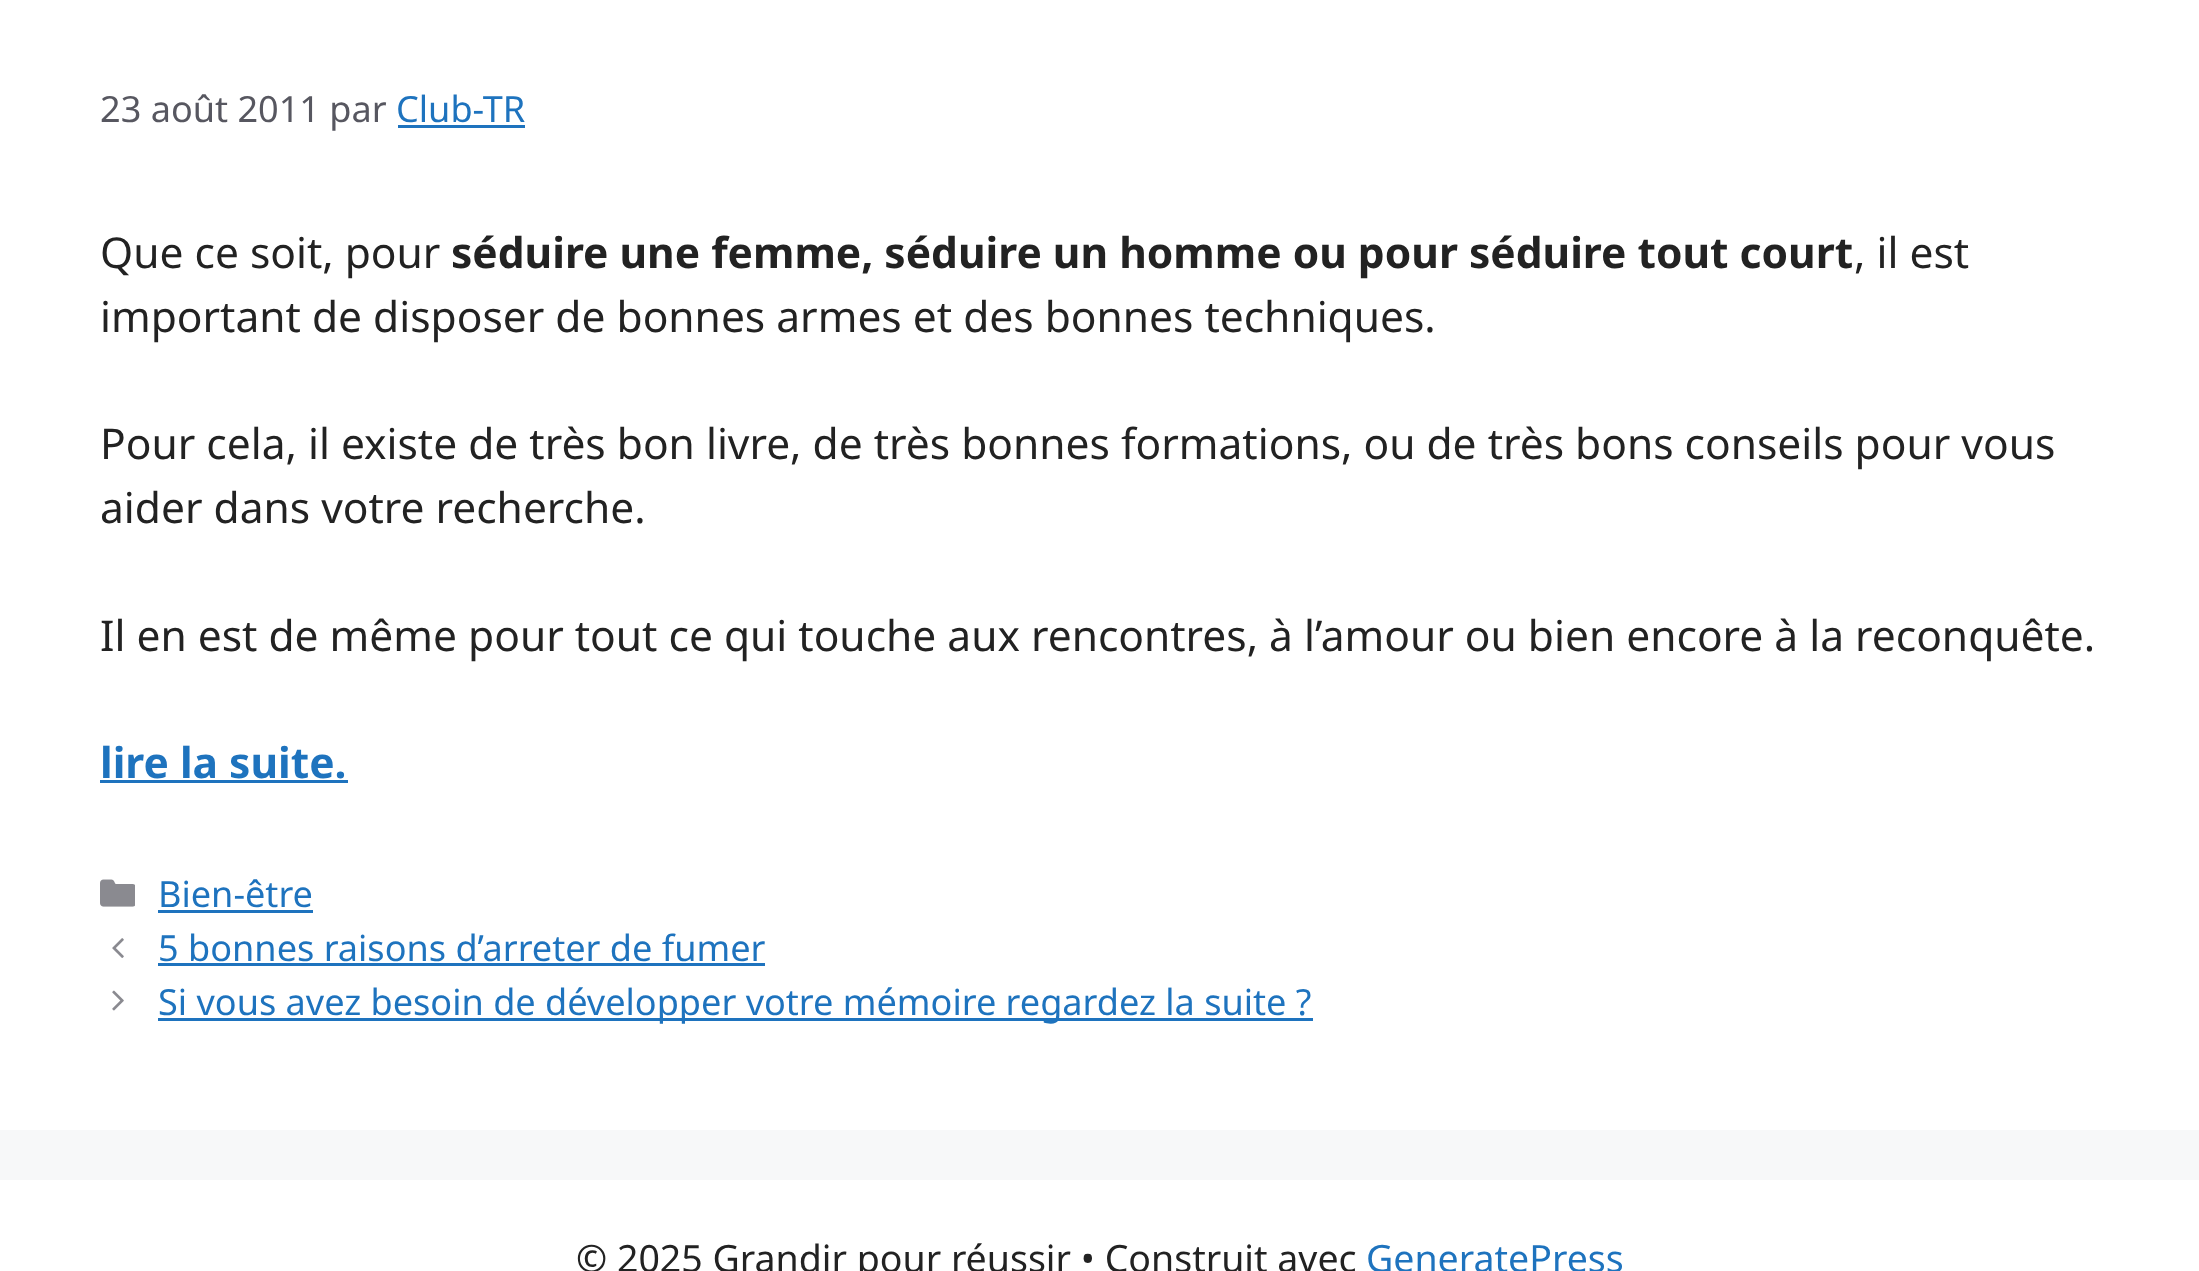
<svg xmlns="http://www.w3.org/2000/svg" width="2199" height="1271">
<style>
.a{font:36.1px Noto Sans;fill:#575760}
.b{font:36.1px Noto Sans;fill:#1e73be}
.c{font:42.5px Noto Sans;fill:#222}
.d{font:bold 42.5px Noto Sans;fill:#222}
.e{font:bold 42.5px Noto Sans;fill:#1e73be}
.f{font:37.5px Noto Sans;fill:#222}
.g{font:37.5px Noto Sans;fill:#1e73be}
</style>
<rect width="100%" height="100%" fill="#f7f8f9"/>
<path fill="#fff" d="M0 0h2199v1130H0z"/>
<path fill="#1e73be" d="M398 125h127v3H398z"/>
<path fill="#1e73be" d="M100 780h248v3H100z"/>
<image href="1.png" x="100" y="879" width="35" height="28"/>
<path fill="#1e73be" d="M158 910h155v3H158z"/>
<image href="2.png" x="112" y="938" width="12" height="20"/>
<path fill="#1e73be" d="M158 963h607v3H158z"/>
<image href="3.png" x="112" y="990" width="12" height="21"/>
<path fill="#1e73be" d="M158 1018h1155v3H158z"/>
<path fill="#fff" d="M0 1180h2199v91H0z"/>
<text class="a" x="100" y="122">23 août 2011 par</text>
<text class="b" x="396" y="122">Club-TR</text>
<text class="c" x="100" y="268">Que ce soit, pour</text>
<text class="d" x="451" y="268">séduire une femme, séduire un homme ou pour séduire tout court</text>
<text class="c" x="1854" y="268">, il est</text>
<text class="c" x="100" y="332">important de disposer de bonnes armes et des bonnes techniques.</text>
<text class="c" x="100" y="459">Pour cela, il existe de très bon livre, de très bonnes formations, ou de très bons conseils pour vous</text>
<text class="c" x="100" y="523">aider dans votre recherche.</text>
<text class="c" x="100" y="651">Il en est de même pour tout ce qui touche aux rencontres, à l’amour ou bien encore à la reconquête.</text>
<text class="e" x="100" y="778">lire la suite.</text>
<text class="b" x="158" y="907">Bien-être</text>
<text class="b" x="158" y="961">5 bonnes raisons d’arreter de fumer</text>
<text class="b" x="158" y="1015">Si vous avez besoin de développer votre mémoire regardez la suite ?</text>
<text class="f" x="576" y="1272">© 2025 Grandir pour réussir • Construit avec</text>
<text class="g" x="1366" y="1272">GeneratePress</text>
</svg>
